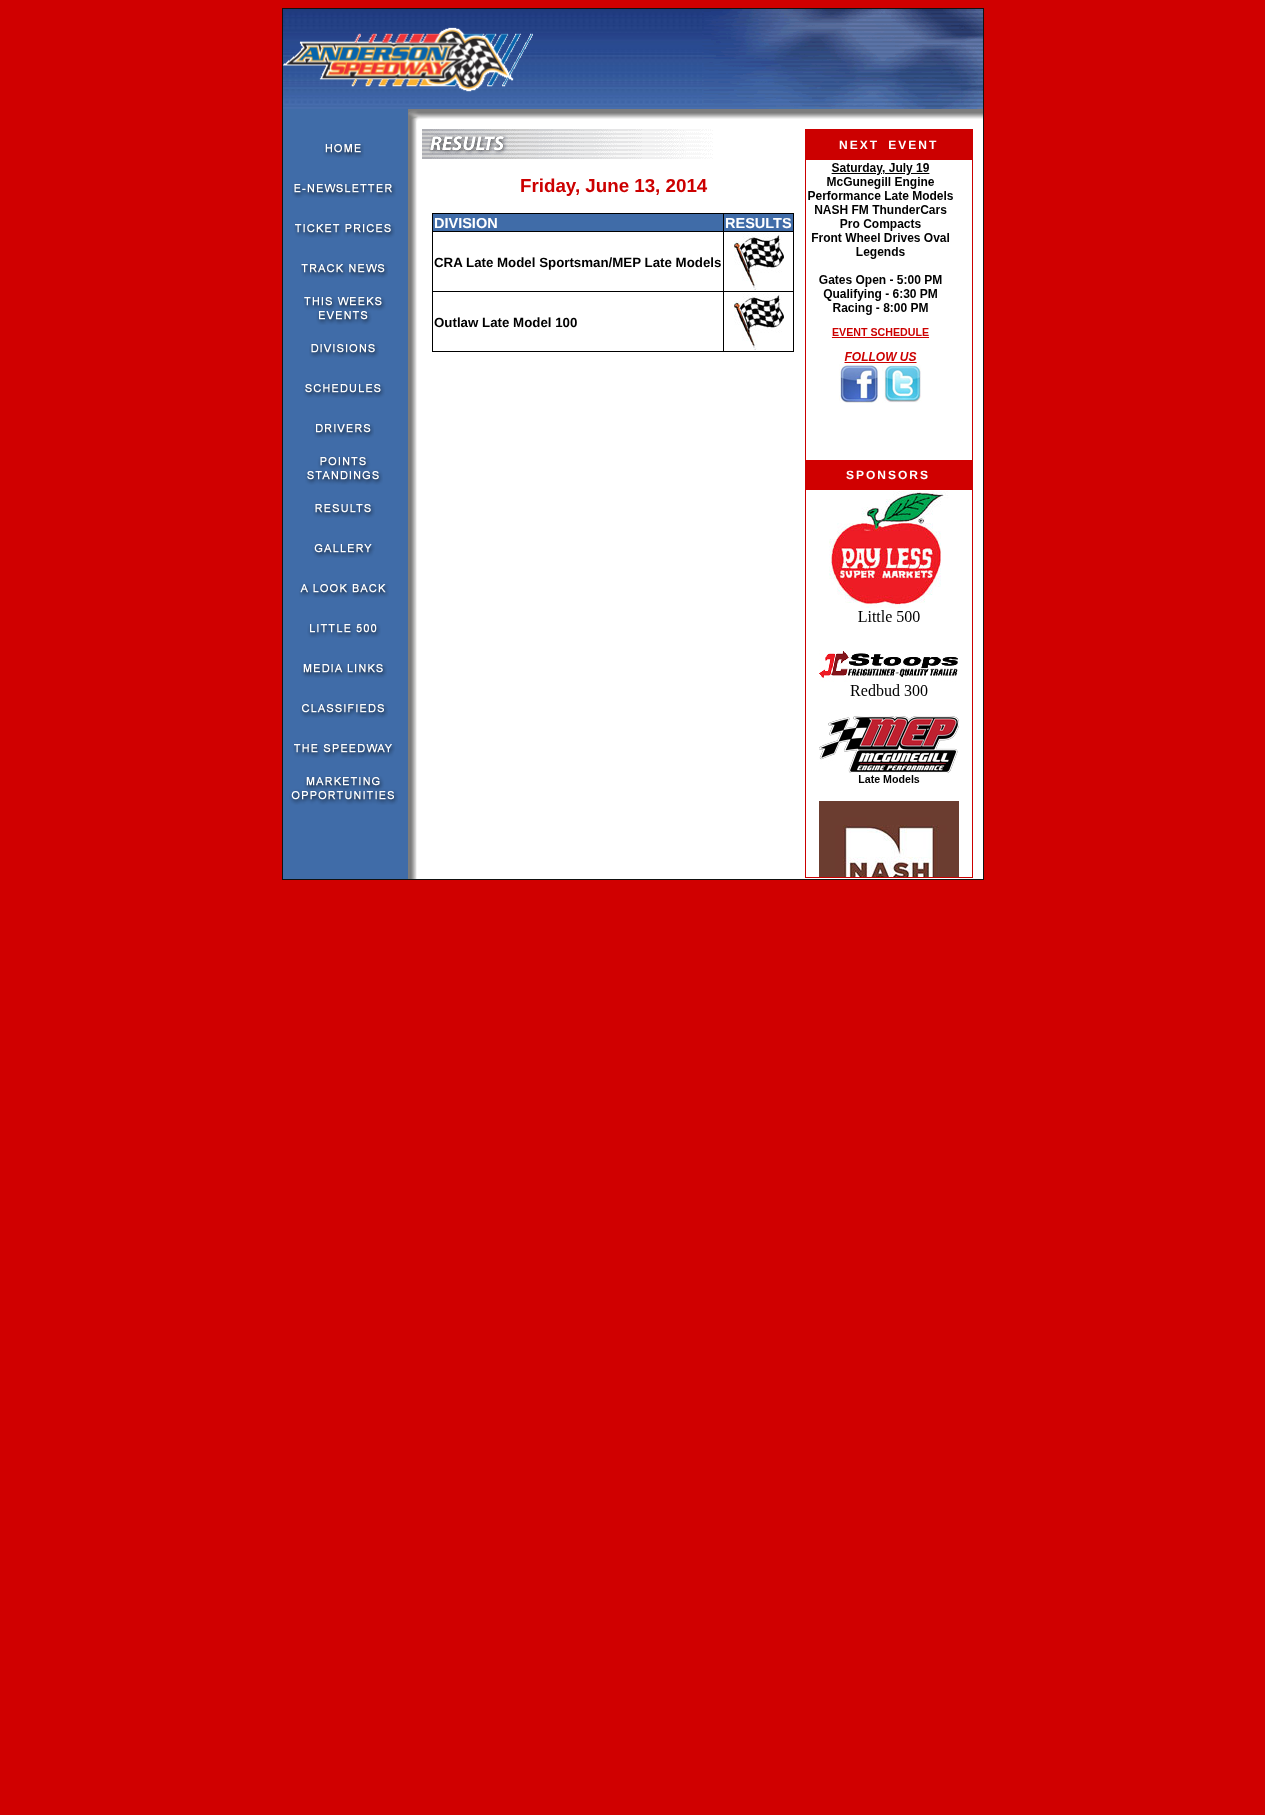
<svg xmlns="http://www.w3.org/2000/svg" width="1265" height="1815">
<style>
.a{font:bold 18.75px Liberation Sans;fill:#c00}
.b{font:bold 14.5px Liberation Sans;fill:#fff}
.c{font:bold 13.3px Liberation Sans;fill:#000}
.d{font:bold 12px Liberation Sans;letter-spacing:2px;fill:#fff}
</style>
<rect width="100%" height="100%" fill="#d00000"/>
<path fill="#fff" d="M417 119h566v760H417z"/>
<path fill="#111" d="M282 8h702v1H282z"/>
<path fill="#111" d="M983 8h1v872H983z"/>
<path fill="#111" d="M282 879h702v1H282z"/>
<path fill="#111" d="M282 8h1v872H282z"/>
<image href="1.png" x="283" y="9" width="419" height="100"/>
<image href="2.png" x="283" y="27" width="250" height="65"/>
<image href="3.png" x="702" y="9" width="281" height="100"/>
<path fill="#406ca8" d="M283 109h125v770H283z"/>
<image href="4.png" x="408" y="109" width="14" height="20"/>
<image href="5.png" x="422" y="109" width="383" height="10"/>
<image href="6.png" x="805" y="109" width="178" height="10"/>
<image href="7.png" x="323" y="143" width="41" height="15"/>
<image href="8.png" x="292" y="183" width="104" height="15"/>
<image href="9.png" x="294" y="223" width="101" height="15"/>
<image href="10.png" x="300" y="263" width="88" height="15"/>
<image href="11.png" x="303" y="296" width="83" height="29"/>
<image href="12.png" x="309" y="343" width="70" height="15"/>
<image href="13.png" x="303" y="383" width="82" height="15"/>
<image href="14.png" x="313" y="423" width="61" height="15"/>
<image href="15.png" x="305" y="456" width="78" height="29"/>
<image href="16.png" x="313" y="503" width="62" height="15"/>
<image href="17.png" x="312" y="543" width="63" height="15"/>
<image href="18.png" x="299" y="583" width="90" height="15"/>
<image href="19.png" x="307" y="623" width="74" height="15"/>
<image href="20.png" x="301" y="663" width="86" height="15"/>
<image href="21.png" x="300" y="703" width="88" height="15"/>
<image href="22.png" x="293" y="743" width="102" height="15"/>
<image href="23.png" x="289" y="776" width="109" height="29"/>
<image href="24.png" x="408" y="129" width="9" height="750"/>
<image href="25.png" x="422" y="129" width="291" height="30"/>
<path fill="#000" d="M432 213h362v1H432z"/>
<path fill="#000" d="M793 213h1v139H793z"/>
<path fill="#000" d="M432 351h362v1H432z"/>
<path fill="#000" d="M432 213h1v139H432z"/>
<path fill="#406ca8" d="M433 214h290v17H433z"/>
<path fill="#406ca8" d="M724 214h69v17H724z"/>
<path fill="#000" d="M723 231h71v1H723z"/>
<path fill="#000" d="M723 291h71v1H723z"/>
<path fill="#000" d="M723 291h1v61H723z"/>
<path fill="#000" d="M432 291h292v1H432z"/>
<path fill="#000" d="M723 231h1v61H723z"/>
<path fill="#000" d="M432 231h292v1H432z"/>
<path fill="#000" d="M723 213h1v19H723z"/>
<image href="26.png" x="734" y="233" width="50" height="57"/>
<image href="26.png" x="734" y="293" width="50" height="57"/>
<path fill="#c00" d="M805 129h168v1H805z"/>
<path fill="#c00" d="M972 129h1v749H972z"/>
<path fill="#c00" d="M805 877h168v1H805z"/>
<path fill="#c00" d="M805 129h1v749H805z"/>
<path fill="#c00" d="M806 130h166v30H806z"/>
<image href="27.png" x="808" y="163" width="145" height="240"/>
<path fill="#d00000" d="M806 460h166v30H806z"/>
<image href="28.png" x="819" y="491" width="140" height="386"/>
<text class="a" x="520" y="192">Friday, June 13, 2014</text>
<text class="b" x="434" y="228">DIVISION</text>
<text class="b" x="725" y="228">RESULTS</text>
<text class="c" x="434" y="267">CRA Late Model Sportsman/MEP Late Models</text>
<text class="c" x="434" y="327">Outlaw Late Model 100</text>
<text class="d" x="839" y="149" word-spacing="4">NEXT EVENT</text>
<text class="d" x="846" y="479">SPONSORS</text>
</svg>
